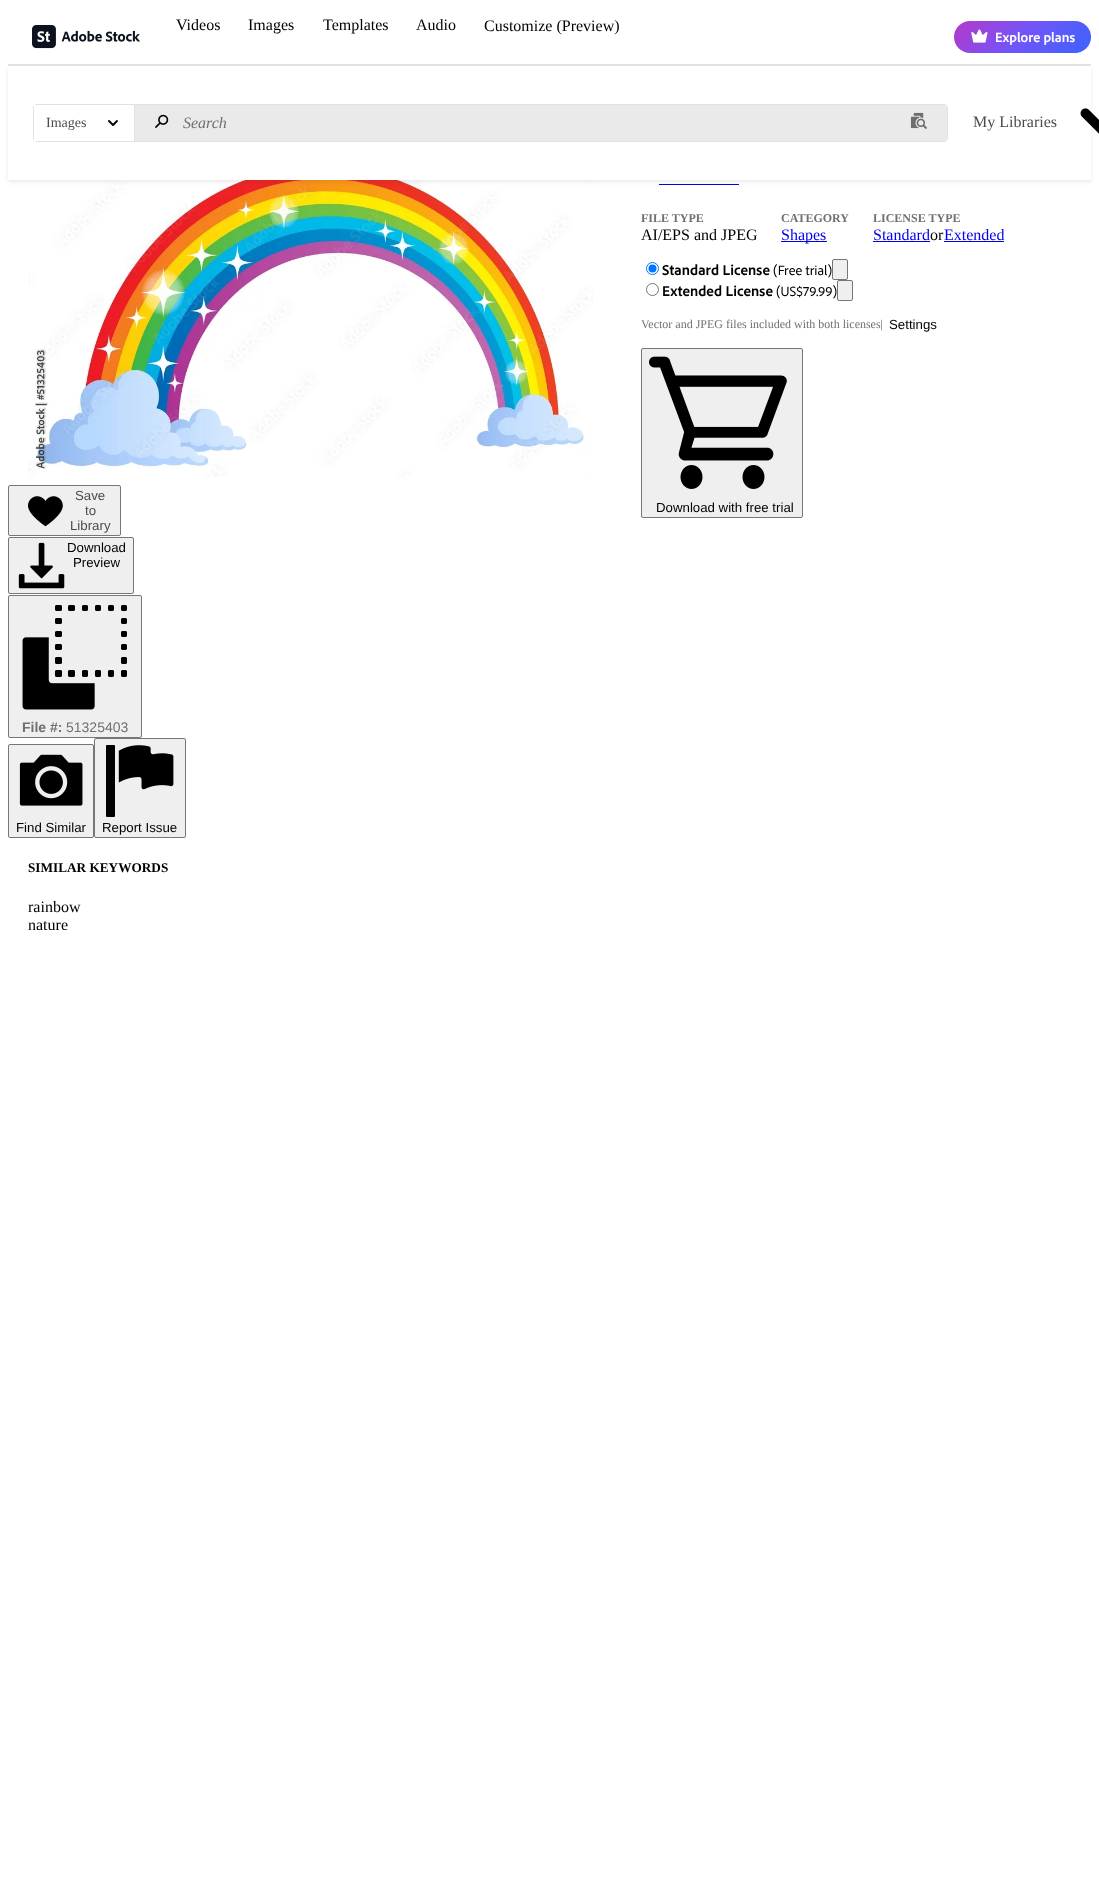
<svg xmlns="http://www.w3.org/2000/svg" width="1099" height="1896">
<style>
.a{font:16px Liberation Serif;fill:#000}
.b{font:bold 14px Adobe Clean;fill:#fff}
.c{font:14px Liberation Serif;fill:#4b4b4b}
.d{font:italic 16px Liberation Serif;fill:#707070}
.e{font:16px Liberation Serif;fill:#4b4b4b}
.f{font:bold 12px Liberation Serif;fill:#707070}
.g{font:16px Liberation Serif;fill:#00e}
.h{font:bold 15px Adobe Clean;fill:#000}
.i{font:14px Adobe Clean;fill:#000}
.j{font:12px Liberation Serif;fill:#707070}
.k{font:13.25px Liberation Sans;fill:#000}
.l{font:13.25px Liberation Sans;fill:#4b4b4b}
.m{font:bold 14px Liberation Sans;fill:#707070}
.n{font:14px Liberation Sans;fill:#707070}
.o{font:bold 13.25px Liberation Serif;fill:#000}
</style>
<defs>
<linearGradient id="g1" gradientUnits="userSpaceOnUse" x1="980" y1="-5.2" x2="1065" y2="79"><stop offset="0" stop-color="#b539c8"/><stop offset="0.5" stop-color="#7155fa"/><stop offset="1" stop-color="#3b63fb"/></linearGradient>
<clipPath id="clip1"><path d="M28 898h1043v32H28z"/></clipPath>
</defs>
<rect width="100%" height="100%" fill="#fff"/>
<path fill="#00e" d="M659 184h80v1H659z"/>
<image href="8.png" x="28" y="180" width="565" height="297"/>
<path fill="#3434341a" filter="blur(2px)" d="M8 68h1083v114H8z"/>
<path fill="#e1e1e1" d="M8 64h1083v2H8z"/>
<image href="1.png" x="32" y="25" width="108" height="24"/>
<rect fill="url(#g1)" x="954" y="21" width="137" height="32" rx="16"/>
<image href="2.png" x="971" y="29" width="17" height="14"/>
<path fill="#fff" d="M8 66h1083v114H8z"/>
<path fill="none" stroke="#e1e1e1" d="M37 104.5h97.5v37h-97.5c-2 0-3.5-1.5-3.5-3.5v-30c0-2 1.5-3.5 3.5-3.5z"/>
<path fill="#fff" d="M34 105h3v36H34z"/>
<image href="3.png" x="108" y="120" width="10" height="6"/>
<path fill="#eaeaea" d="M135 105h809c1.5 0 3 1.5 3 3v30c0 1.5-1.5 3-3 3h-809z"/>
<path fill="#e1e1e1" fill-rule="evenodd" d="M135 104h809c2 0 4 2 4 4v30c0 2-2 4-4 4h-809zm0 1h809c2 0 3 1 3 3v30c0 2-1 3-3 3h-809z"/>
<image href="4.png" x="155" y="114" width="14" height="14"/>
<image href="5.png" x="910" y="112" width="17" height="17"/>
<image href="6.png" x="1080" y="108" width="19" height="26"/>
<path fill="#00e" d="M781 241h46v1H781z"/>
<path fill="#00e" d="M873 241h57v1H873z"/>
<path fill="#00e" d="M944 241h60v1H944z"/>
<circle fill="none" stroke="#0075ff" cx="652.5" cy="268.5" r="6"/>
<circle fill="#0075ff" cx="652.5" cy="268.5" r="4"/>
<rect fill="#efefef" stroke="#767676" x="832.5" y="259.5" width="15" height="20" rx="1.5"/>
<circle fill="none" stroke="#767676" cx="652.5" cy="289.5" r="6"/>
<rect fill="#efefef" stroke="#767676" x="837.5" y="280.5" width="15" height="20" rx="1.5"/>
<rect fill="#efefef" stroke="#767676" x="641.5" y="348.5" width="161" height="169" rx="1.5"/>
<image href="7.png" x="649" y="356" width="138" height="133"/>
<rect fill="#efefef" stroke="#767676" x="8.5" y="485.5" width="112" height="50" rx="1.5"/>
<image href="9.png" x="28" y="496" width="35" height="31"/>
<rect fill="#efefef" stroke="#767676" x="8.5" y="537.5" width="125" height="56" rx="1.5"/>
<image href="10.png" x="18" y="542" width="47" height="47"/>
<rect fill="#efefef" stroke="#767676" x="8.5" y="595.5" width="133" height="142" rx="1.5"/>
<image href="11.png" x="22" y="605" width="105" height="105"/>
<rect fill="#efefef" stroke="#767676" x="8.5" y="744.5" width="85" height="93" rx="1.5"/>
<image href="12.png" x="19" y="754" width="64" height="52"/>
<rect fill="#efefef" stroke="#767676" x="94.5" y="738.5" width="91" height="99" rx="1.5"/>
<image href="13.png" x="106" y="745" width="68" height="72"/>
<text class="a" x="176" y="30">Videos</text>
<text class="a" x="248" y="30">Images</text>
<text class="a" x="323" y="30">Templates</text>
<text class="a" x="416" y="30">Audio</text>
<text class="a" x="484" y="31">Customize (Preview)</text>
<text class="b" x="995" y="42">Explore plans</text>
<text class="c" x="46" y="127">Images</text>
<text class="d" x="183" y="128">Search</text>
<text class="e" x="973" y="127">My Libraries</text>
<text class="f" x="641" y="222">FILE TYPE</text>
<text class="a" x="641" y="240">AI/EPS and JPEG</text>
<text class="f" x="781" y="222">CATEGORY</text>
<text class="g" x="781" y="240">Shapes</text>
<text class="f" x="873" y="222">LICENSE TYPE</text>
<text class="g" x="873" y="240">Standard</text>
<text class="a" x="930" y="240">or</text>
<text class="g" x="944" y="240">Extended</text>
<text class="h" x="662" y="275">Standard License</text>
<text class="i" x="773" y="275">(Free trial)</text>
<text class="h" x="662" y="296">Extended License</text>
<text class="i" x="776" y="296">(US$79.99)</text>
<text class="j" x="641" y="328">Vector and JPEG files included with both licenses|</text>
<text class="k" x="889" y="329">Settings</text>
<text class="k" x="656" y="512">Download with free trial</text>
<text class="l" x="75" y="500">Save</text>
<text class="l" x="85" y="515">to</text>
<text class="l" x="70" y="530">Library</text>
<text class="k" x="67" y="552">Download</text>
<text class="k" x="73" y="567">Preview</text>
<text class="m" x="22" y="732">File #:</text>
<text class="n" x="66" y="732">51325403</text>
<text class="k" x="16" y="832">Find Similar</text>
<text class="k" x="102" y="832">Report Issue</text>
<text class="o" x="28" y="872">SIMILAR KEYWORDS</text>
<text class="a" x="28" y="912">rainbow</text>
<g clip-path="url(#clip1)">
<text class="a" x="28" y="930">nature</text>
</g>
</svg>
